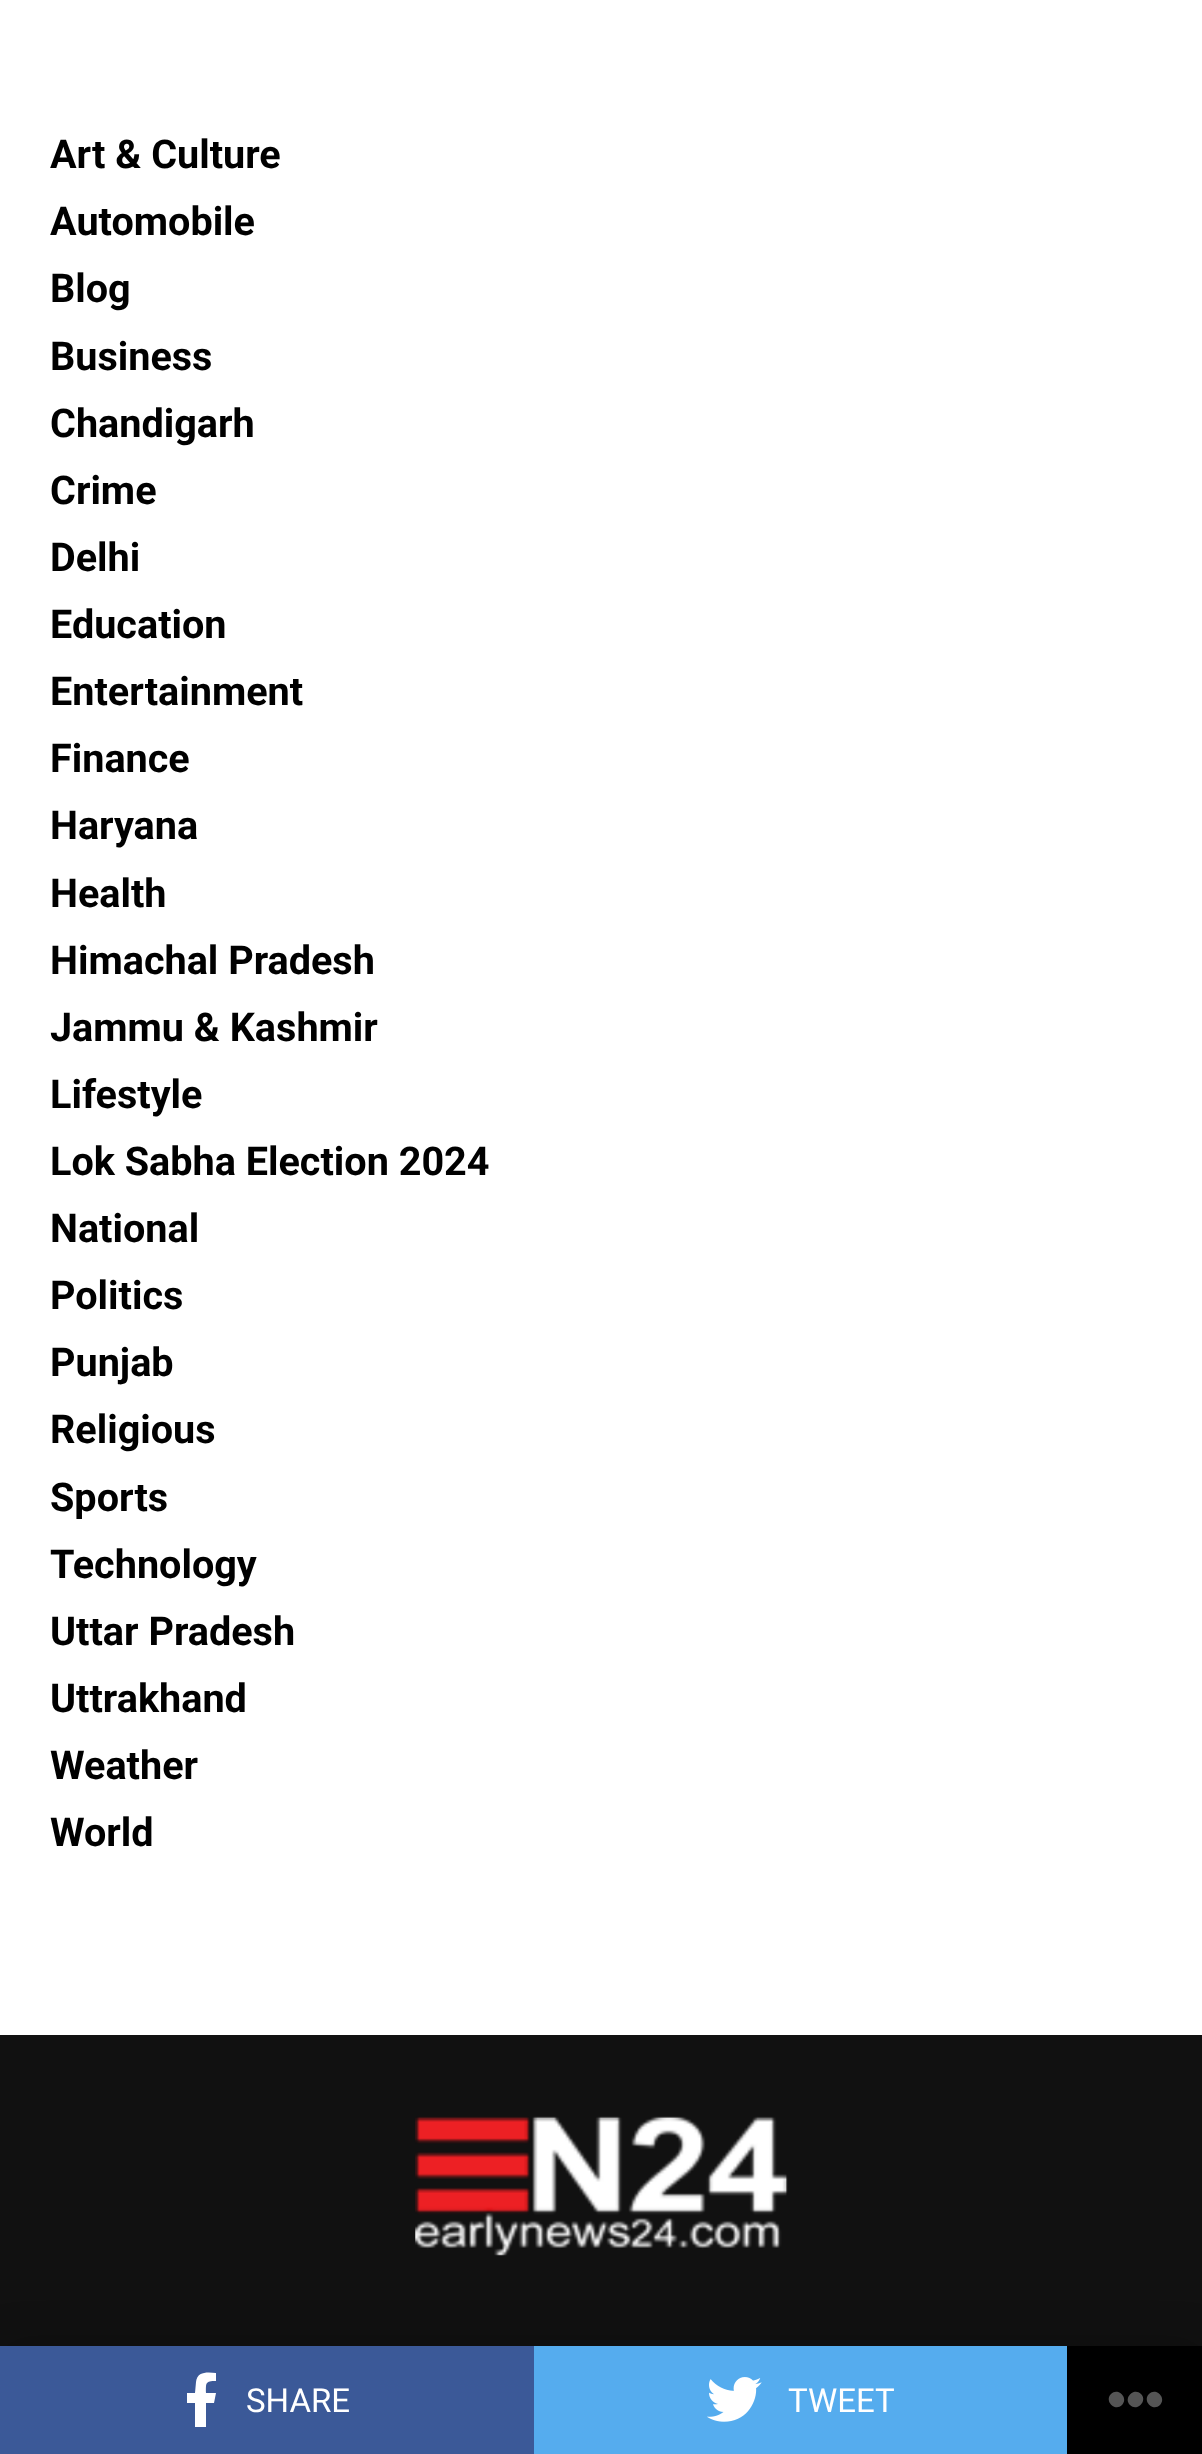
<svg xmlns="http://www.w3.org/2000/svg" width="1202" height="2454">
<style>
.a{font:bold 39.6px Roboto;fill:#000}
.b{font:33px Roboto;fill:#fff}
</style>
<rect width="100%" height="100%" fill="#fff"/>
<path fill="#111" d="M0 2035h1202v311H0z"/>
<path fill="#00000033" filter="blur(22px)" d="M0 2346h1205v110H0z"/>
<path fill="#3b5998" d="M0 2346h534v108H0z"/>
<path fill="#fff" d="M214 2403h-8v24h-11v-24h-8v-10h8l1-11c1-11 12-10 20-9v8c-11 0-10 2-10 12h10z"/>
<path fill="#55acee" d="M534 2346h533v108H534z"/>
<image href="1.png" x="707" y="2377" width="55" height="45"/>
<path fill="#000" d="M1067 2346h135v108H1067z"/>
<path fill="#555" d="M1141 2394c7 7-4 18-11 11c-7-7 4-18 11-11zm8 0c7-7 18 4 11 11c-7 7-18-4-11-11zm-38 0c7-7 18 4 11 11c-7 7-18-4-11-11z"/>
<image href="2.png" x="415" y="2116" width="373" height="140"/>
<text class="a" x="50" y="168">Art &amp; Culture</text>
<text class="a" x="50" y="235">Automobile</text>
<text class="a" x="50" y="302">Blog</text>
<text class="a" x="50" y="370">Business</text>
<text class="a" x="50" y="437">Chandigarh</text>
<text class="a" x="50" y="504">Crime</text>
<text class="a" x="50" y="571">Delhi</text>
<text class="a" x="50" y="638">Education</text>
<text class="a" x="50" y="705">Entertainment</text>
<text class="a" x="50" y="772">Finance</text>
<text class="a" x="50" y="839">Haryana</text>
<text class="a" x="50" y="907">Health</text>
<text class="a" x="50" y="974">Himachal Pradesh</text>
<text class="a" x="50" y="1041">Jammu &amp; Kashmir</text>
<text class="a" x="50" y="1108">Lifestyle</text>
<text class="a" x="50" y="1175">Lok Sabha Election 2024</text>
<text class="a" x="50" y="1242">National</text>
<text class="a" x="50" y="1309">Politics</text>
<text class="a" x="50" y="1376">Punjab</text>
<text class="a" x="50" y="1443">Religious</text>
<text class="a" x="50" y="1511">Sports</text>
<text class="a" x="50" y="1578">Technology</text>
<text class="a" x="50" y="1645">Uttar Pradesh</text>
<text class="a" x="50" y="1712">Uttrakhand</text>
<text class="a" x="50" y="1779">Weather</text>
<text class="a" x="50" y="1846">World</text>
<text class="b" x="246" y="2412">SHARE</text>
<text class="b" x="788" y="2412">TWEET</text>
</svg>
